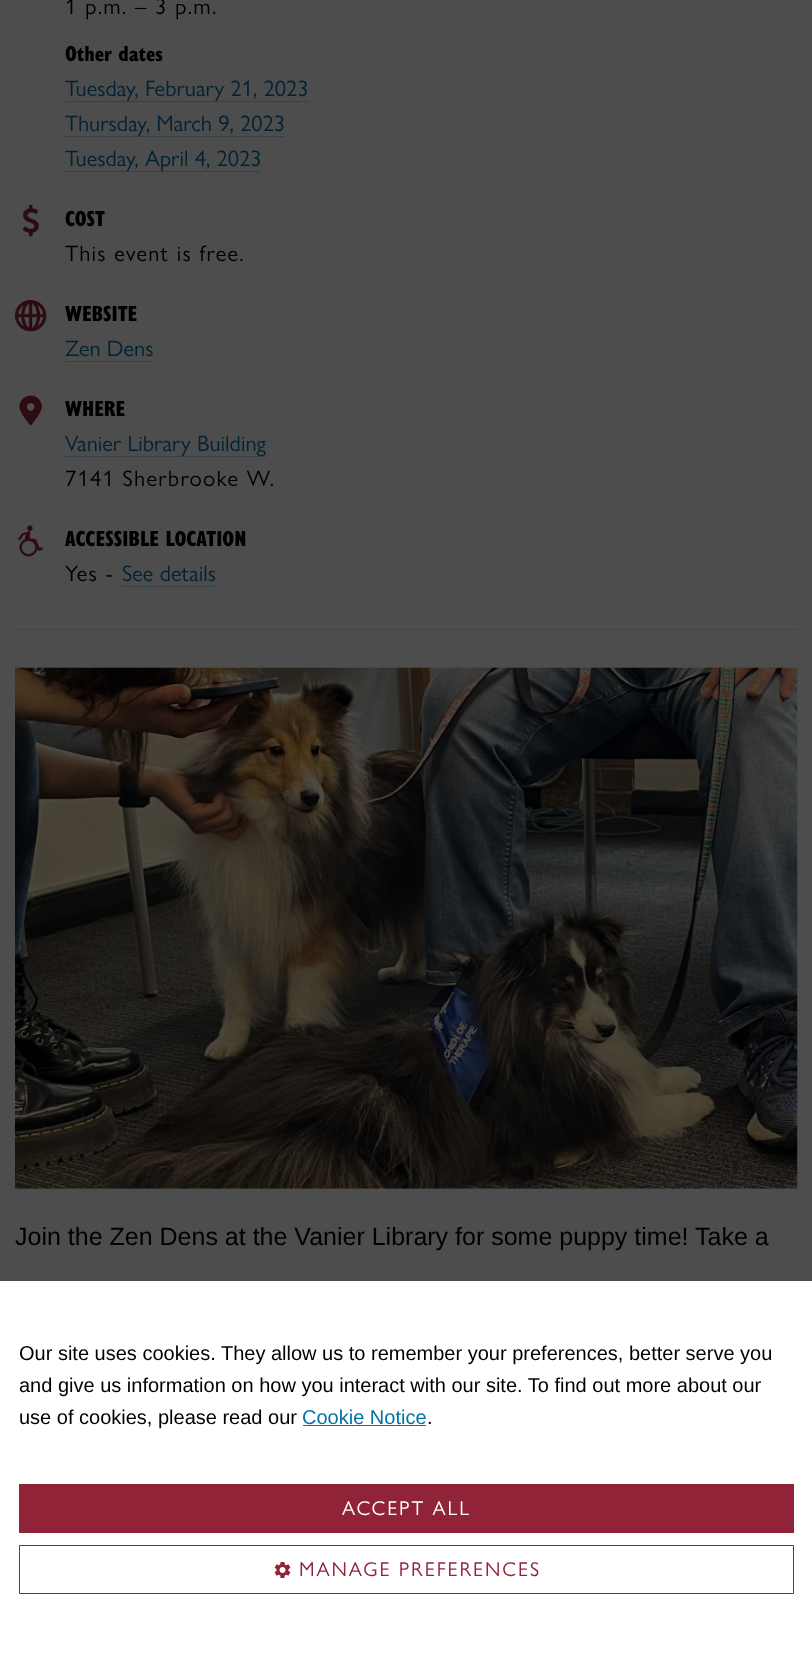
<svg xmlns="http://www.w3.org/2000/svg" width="812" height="1662">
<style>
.a{font:22.5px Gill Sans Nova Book;letter-spacing:1.25px;fill:#000}
.b{font:900 22.5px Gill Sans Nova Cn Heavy;fill:#000}
.c{font:22.5px Gill Sans Nova Book;fill:#002232}
.d{font:25px Liberation Sans;fill:#000}
.e{font:20px Liberation Sans;fill:#000}
.f{font:20px Liberation Sans;fill:#0072a8}
.g{font:20px Gill Sans Nova Book;letter-spacing:1.9px;fill:#fff}
.h{font:20px Gill Sans Nova Book;letter-spacing:1.9px;fill:#912338}
</style>
<rect width="100%" height="100%" fill="#4d4d4d"/>
<path fill="#364045" d="M65 101h244v1H65z"/>
<path fill="#364045" d="M65 136h220v1H65z"/>
<path fill="#364045" d="M65 171h196v1H65z"/>
<image href="1.png" x="22" y="205" width="18" height="32"/>
<image href="2.png" x="15" y="300" width="32" height="32"/>
<path fill="#364045" d="M65 361h89v1H65z"/>
<image href="3.png" x="19" y="395" width="24" height="31"/>
<path fill="#364045" d="M65 456h201v1H65z"/>
<image href="4.png" x="18" y="525" width="25" height="32"/>
<path fill="#364045" d="M121 586h94v1H121z"/>
<path fill="#454545" d="M15 629h783v1H15z"/>
<image href="5.png" x="15" y="667" width="783" height="522"/>
<path fill="#fff" d="M0 1281h812v381H0z"/>
<path fill="#0072a8" d="M303 1425h123v1H303z"/>
<path fill="#912338" d="M19 1484h775v49H19z"/>
<path fill="none" stroke="#912338" d="M19.5 1545.5h774v48H19.5z"/>
<image href="6.png" x="274" y="1562" width="17" height="16"/>
<text class="a" x="65" y="14">1 p.m. – 3 p.m.</text>
<text class="b" x="65" y="61">Other dates</text>
<text class="c" x="65" y="96">Tuesday, February 21, 2023</text>
<text class="c" x="65" y="131">Thursday, March 9, 2023</text>
<text class="c" x="65" y="166">Tuesday, April 4, 2023</text>
<text class="b" x="65" y="226">COST</text>
<text class="a" x="65" y="261">This event is free.</text>
<text class="b" x="65" y="321">WEBSITE</text>
<text class="c" x="65" y="356">Zen Dens</text>
<text class="b" x="65" y="416">WHERE</text>
<text class="c" x="65" y="451">Vanier Library Building</text>
<text class="a" x="65" y="486">7141 Sherbrooke W.</text>
<text class="b" x="65" y="546">ACCESSIBLE LOCATION</text>
<text class="a" x="65" y="581">Yes -</text>
<text class="c" x="122" y="581">See details</text>
<text class="d" x="15" y="1245">Join the Zen Dens at the Vanier Library for some puppy time! Take a</text>
<text class="e" x="19" y="1360">Our site uses cookies. They allow us to remember your preferences, better serve you</text>
<text class="e" x="19" y="1392">and give us information on how you interact with our site. To find out more about our</text>
<text class="e" x="19" y="1424">use of cookies, please read our</text>
<text class="f" x="302" y="1424">Cookie Notice</text>
<text class="e" x="427" y="1424">.</text>
<text class="g" x="342" y="1515">ACCEPT ALL</text>
<text class="h" x="299" y="1576">MANAGE PREFERENCES</text>
</svg>
